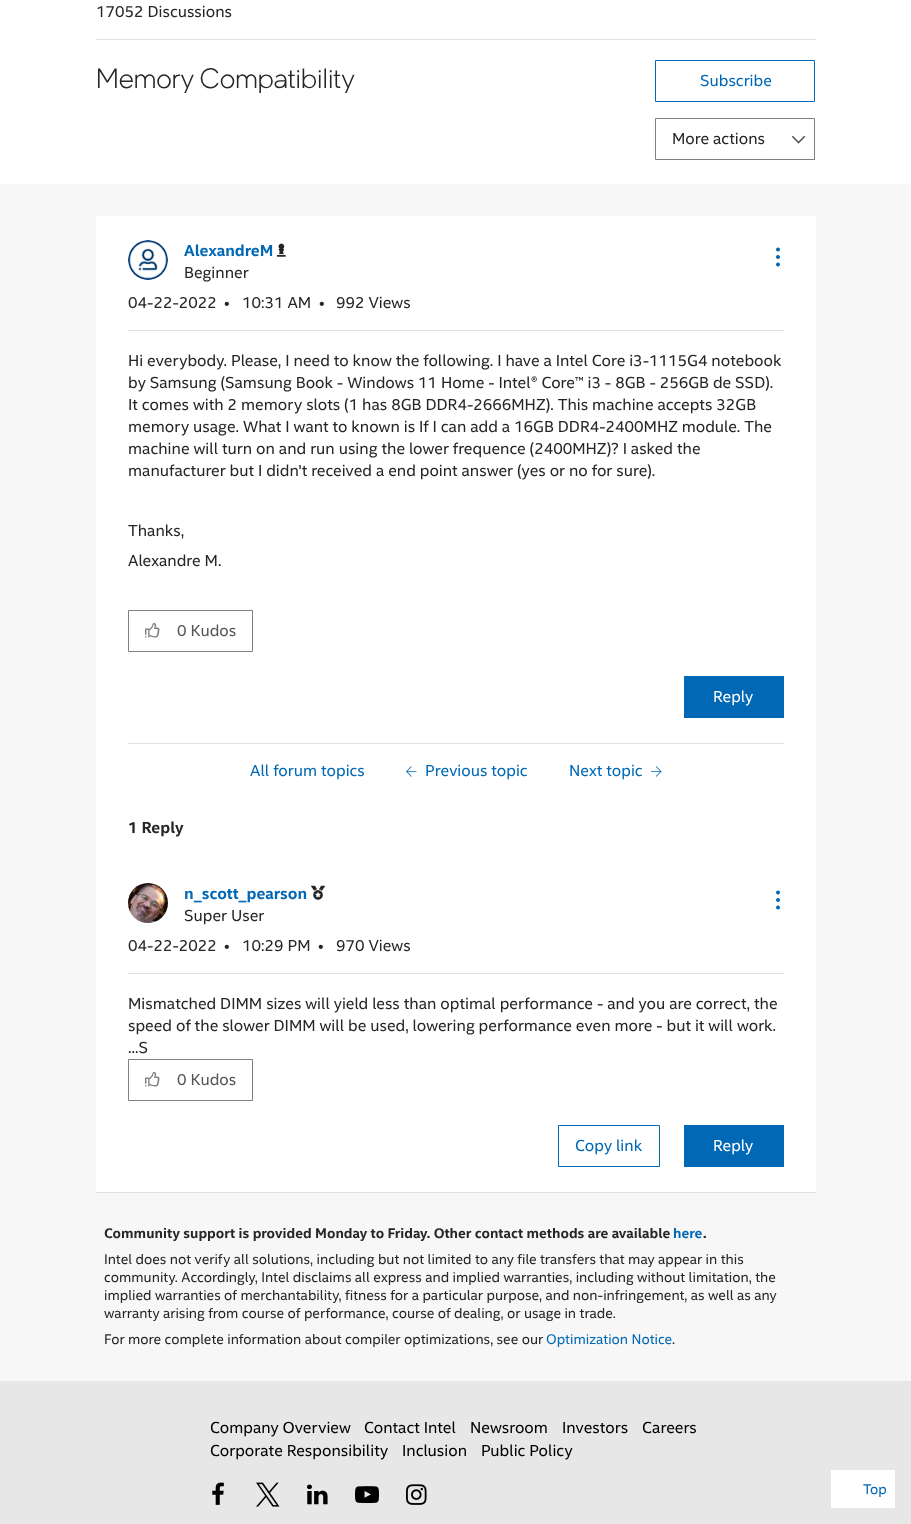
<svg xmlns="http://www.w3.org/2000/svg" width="911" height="1524">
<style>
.a{font:16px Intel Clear;fill:#262626}
.b{font:300 28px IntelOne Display;fill:#262626}
.c{font:16px Intel Clear;fill:#0068b5}
.d{font:bold 16px Intel Clear;fill:#0068b5}
.e{font:16px Intel Clear;fill:#555}
.f{font:16px Intel Clear;fill:#fff}
.g{font:bold 16px Intel Clear;fill:#262626}
.h{font:bold 14px Intel Clear;fill:#262626}
.i{font:bold 14px Intel Clear;fill:#0068b5}
.j{font:14px Intel Clear;fill:#262626}
.k{font:14px Intel Clear;fill:#0068b5}
.l{font:16px Intel Clear;fill:#000}
</style>
<rect width="100%" height="100%" fill="#f7f7f7"/>
<path fill="#fff" d="M0 0h911v184H0z"/>
<path fill="#e0e0e0" d="M96 39h720v1H96z"/>
<path fill="none" stroke="#0068b5" d="M655.5 60.5h159v41H655.5z"/>
<image href="1.png" x="791" y="135" width="15" height="9"/>
<path fill="none" stroke="#808080" d="M655.5 118.5h159v41H655.5z"/>
<path fill="#fff" d="M96 216h720v976H96z"/>
<path fill="#e0e0e0" d="M128 330h656v1H128z"/>
<image href="2.png" x="128" y="240" width="40" height="40"/>
<image href="3.png" x="277" y="243" width="9" height="14"/>
<image href="4.png" x="776" y="247" width="4" height="20"/>
<path fill="none" stroke="#808080" d="M128.5 610.5h124v41H128.5z"/>
<image href="5.png" x="145" y="623" width="15" height="15"/>
<path fill="#0068b5" d="M684 676h100v42H684z"/>
<path fill="#e0e0e0" d="M128 743h656v1H128z"/>
<image href="6.png" x="406" y="766" width="11" height="11"/>
<image href="7.png" x="651" y="766" width="11" height="11"/>
<path fill="#e0e0e0" d="M128 973h656v1H128z"/>
<image href="8.png" x="128" y="883" width="40" height="40"/>
<image href="9.png" x="311" y="885" width="14" height="15"/>
<image href="4.png" x="776" y="890" width="4" height="20"/>
<path fill="none" stroke="#808080" d="M128.5 1059.5h124v41H128.5z"/>
<image href="5.png" x="145" y="1072" width="15" height="15"/>
<path fill="none" stroke="#0068b5" d="M558.5 1125.5h101v41H558.5z"/>
<path fill="#0068b5" d="M684 1125h100v42H684z"/>
<path fill="#e0e0e0" d="M96 1192h720v1H96z"/>
<path fill="#e7e7e7" d="M0 1381h911v143H0z"/>
<path fill="#fff" d="M831 1470h64v38H831z"/>
<image href="10.png" x="212" y="1482" width="12" height="23"/>
<image href="11.png" x="256" y="1482" width="24" height="25"/>
<image href="12.png" x="307" y="1484" width="21" height="21"/>
<image href="13.png" x="355" y="1486" width="24" height="18"/>
<image href="14.png" x="406" y="1484" width="21" height="21"/>
<text class="a" x="96" y="17">17052 Discussions</text>
<text class="b" x="96" y="88">Memory Compatibility</text>
<text class="c" x="700" y="86">Subscribe</text>
<text class="a" x="672" y="144">More actions</text>
<text class="d" x="184" y="256">AlexandreM</text>
<text class="a" x="184" y="278">Beginner</text>
<text class="a" x="128" y="308">04-22-2022</text>
<text class="a" x="224" y="308">•</text>
<text class="a" x="242" y="308">10:31 AM</text>
<text class="a" x="319" y="308">•</text>
<text class="a" x="336" y="308">992 Views</text>
<text class="a" x="128" y="366">Hi everybody. Please, I need to know the following. I have a Intel Core i3-1115G4 notebook</text>
<text class="a" x="128" y="388">by Samsung (Samsung Book - Windows 11 Home - Intel® Core™ i3 - 8GB - 256GB de SSD).</text>
<text class="a" x="128" y="410">It comes with 2 memory slots (1 has 8GB DDR4-2666MHZ). This machine accepts 32GB</text>
<text class="a" x="128" y="432">memory usage. What I want to known is If I can add a 16GB DDR4-2400MHZ module. The</text>
<text class="a" x="128" y="454">machine will turn on and run using the lower frequence (2400MHZ)? I asked the</text>
<text class="a" x="128" y="476">manufacturer but I didn't received a end point answer (yes or no for sure).</text>
<text class="a" x="128" y="536">Thanks,</text>
<text class="a" x="128" y="566">Alexandre M.</text>
<text class="e" x="177" y="636">0 Kudos</text>
<text class="f" x="713" y="702">Reply</text>
<text class="c" x="250" y="776">All forum topics</text>
<text class="c" x="425" y="776">Previous topic</text>
<text class="c" x="569" y="776">Next topic</text>
<text class="g" x="128" y="833">1 Reply</text>
<text class="d" x="184" y="899">n_scott_pearson</text>
<text class="a" x="184" y="921">Super User</text>
<text class="a" x="128" y="951">04-22-2022</text>
<text class="a" x="224" y="951">•</text>
<text class="a" x="242" y="951">10:29 PM</text>
<text class="a" x="318" y="951">•</text>
<text class="a" x="336" y="951">970 Views</text>
<text class="a" x="128" y="1009">Mismatched DIMM sizes will yield less than optimal performance - and you are correct, the</text>
<text class="a" x="128" y="1031">speed of the slower DIMM will be used, lowering performance even more - but it will work.</text>
<text class="a" x="128" y="1053">...S</text>
<text class="e" x="177" y="1085">0 Kudos</text>
<text class="c" x="575" y="1151">Copy link</text>
<text class="f" x="713" y="1151">Reply</text>
<text class="h" x="104" y="1238">Community support is provided Monday to Friday. Other contact methods are available</text>
<text class="i" x="673" y="1238">here</text>
<text class="h" x="703" y="1238">.</text>
<text class="j" x="104" y="1264">Intel does not verify all solutions, including but not limited to any file transfers that may appear in this</text>
<text class="j" x="104" y="1282">community. Accordingly, Intel disclaims all express and implied warranties, including without limitation, the</text>
<text class="j" x="104" y="1300">implied warranties of merchantability, fitness for a particular purpose, and non-infringement, as well as any</text>
<text class="j" x="104" y="1318">warranty arising from course of performance, course of dealing, or usage in trade.</text>
<text class="j" x="104" y="1344">For more complete information about compiler optimizations, see our</text>
<text class="k" x="546" y="1344">Optimization Notice</text>
<text class="j" x="672" y="1344">.</text>
<text class="k" x="863" y="1494">Top</text>
<text class="l" x="210" y="1433">Company Overview</text>
<text class="l" x="364" y="1433">Contact Intel</text>
<text class="l" x="470" y="1433">Newsroom</text>
<text class="l" x="562" y="1433">Investors</text>
<text class="l" x="642" y="1433">Careers</text>
<text class="l" x="210" y="1456">Corporate Responsibility</text>
<text class="l" x="402" y="1456">Inclusion</text>
<text class="l" x="481" y="1456">Public Policy</text>
</svg>
